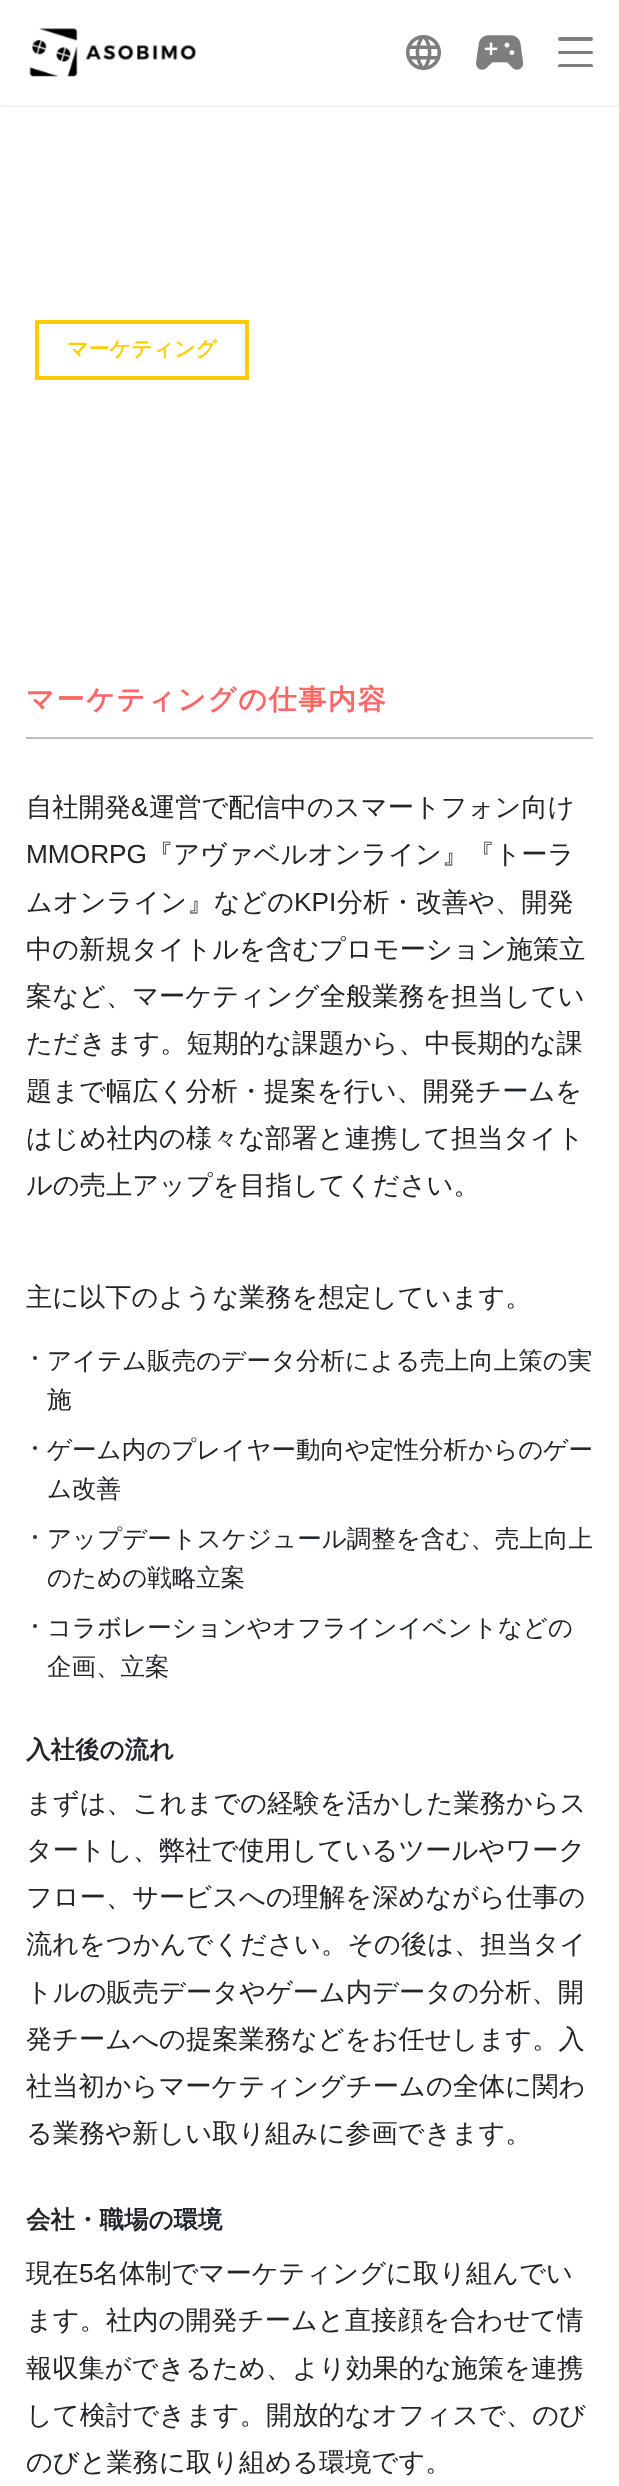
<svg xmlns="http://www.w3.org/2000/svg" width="619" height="2486">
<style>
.a{font:bold 21px WenQuanYi Zen Hei;fill:#fc0}
.b{font:bold 28px WenQuanYi Zen Hei;letter-spacing:1.75px;fill:#f66}
.c{font:500 26.25px WenQuanYi Zen Hei;fill:#212529}
.d{font:26.25px Liberation Sans;fill:#212529}
.e{font:500 24.5px WenQuanYi Zen Hei;fill:#212529}
.f{font:bold 24.5px WenQuanYi Zen Hei;fill:#212529}
</style>
<defs>
<clipPath id="clip1"><path d="M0 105h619v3H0z"/></clipPath>
<clipPath id="clip2"><path d="M558 37h35v30H558z"/></clipPath>
</defs>
<rect width="100%" height="100%" fill="#fff"/>
<g clip-path="url(#clip1)">
<path fill="#00000012" filter="blur(2px)" d="M0 2h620v105H0z"/>
</g>
<image href="1.png" x="29" y="28" width="168" height="49"/>
<image href="2.png" x="406" y="35" width="35" height="35"/>
<image href="3.png" x="476" y="35" width="47" height="35"/>
<rect fill="#7e7e7e" x="558" y="37" width="35" height="4" rx="2"/>
<rect fill="#7e7e7e" x="558" y="51" width="35" height="3" rx="1.5"/>
<g clip-path="url(#clip2)">
<rect fill="#7e7e7e" x="558" y="64" width="35" height="4" rx="2"/>
</g>
<path fill="none" stroke="#fc0" stroke-width="4" d="M37 322h210v56H37z"/>
<path fill="#bfbfbf" d="M26 737h567v2H26z"/>
<circle fill="#323232" cx="35" cy="1358" r="2"/>
<circle fill="#323232" cx="35" cy="1448" r="2"/>
<circle fill="#323232" cx="35" cy="1537" r="2"/>
<circle fill="#323232" cx="35" cy="1626" r="2"/>
<text class="a" x="67" y="356">マーケティング</text>
<text class="b" x="26" y="709">マーケティングの仕事内容</text>
<text class="c" x="26" y="816">自社開発</text>
<text class="d" x="131" y="816">&amp;</text>
<text class="c" x="149" y="816">運営で配信中のスマートフォン向け</text>
<text class="d" x="26" y="863">MMORPG</text>
<text class="c" x="147" y="863">『アヴァベルオンライン』『トーラ</text>
<text class="c" x="26" y="911">ムオンライン』などの</text>
<text class="d" x="294" y="911">KPI</text>
<text class="c" x="337" y="911">分析・改善や、開発</text>
<text class="c" x="26" y="958">中の新規タイトルを含むプロモーション施策立</text>
<text class="c" x="26" y="1005">案など、マーケティング全般業務を担当してい</text>
<text class="c" x="26" y="1052">ただきます。短期的な課題から、中長期的な課</text>
<text class="c" x="26" y="1100">題まで幅広く分析・提案を行い、開発チームを</text>
<text class="c" x="26" y="1147">はじめ社内の様々な部署と連携して担当タイト</text>
<text class="c" x="26" y="1194">ルの売上アップを目指してください。</text>
<text class="c" x="26" y="1306">主に以下のような業務を想定しています。</text>
<text class="e" x="47" y="1369">アイテム販売のデータ分析による売上向上策の実</text>
<text class="e" x="47" y="1408">施</text>
<text class="e" x="47" y="1458">ゲーム内のプレイヤー動向や定性分析からのゲー</text>
<text class="e" x="47" y="1497">ム改善</text>
<text class="e" x="47" y="1547">アップデートスケジュール調整を含む、売上向上</text>
<text class="e" x="47" y="1586">のための戦略立案</text>
<text class="e" x="47" y="1636">コラボレーションやオフラインイベントなどの</text>
<text class="e" x="47" y="1675">企画、立案</text>
<text class="f" x="26" y="1758">入社後の流れ</text>
<text class="c" x="26" y="1812">まずは、これまでの経験を活かした業務からス</text>
<text class="c" x="26" y="1859">タートし、弊社で使用しているツールやワーク</text>
<text class="c" x="26" y="1906">フロー、サービスへの理解を深めながら仕事の</text>
<text class="c" x="26" y="1953">流れをつかんでください。その後は、担当タイ</text>
<text class="c" x="26" y="2001">トルの販売データやゲーム内データの分析、開</text>
<text class="c" x="26" y="2048">発チームへの提案業務などをお任せします。入</text>
<text class="c" x="26" y="2095">社当初からマーケティングチームの全体に関わ</text>
<text class="c" x="26" y="2142">る業務や新しい取り組みに参画できます。</text>
<text class="f" x="26" y="2228">会社・職場の環境</text>
<text class="c" x="26" y="2282">現在</text>
<text class="d" x="79" y="2282">5</text>
<text class="c" x="93" y="2282">名体制でマーケティングに取り組んでい</text>
<text class="c" x="26" y="2329">ます。社内の開発チームと直接顔を合わせて情</text>
<text class="c" x="26" y="2377">報収集ができるため、より効果的な施策を連携</text>
<text class="c" x="26" y="2424">して検討できます。開放的なオフィスで、のび</text>
<text class="c" x="26" y="2471">のびと業務に取り組める環境です。</text>
</svg>
